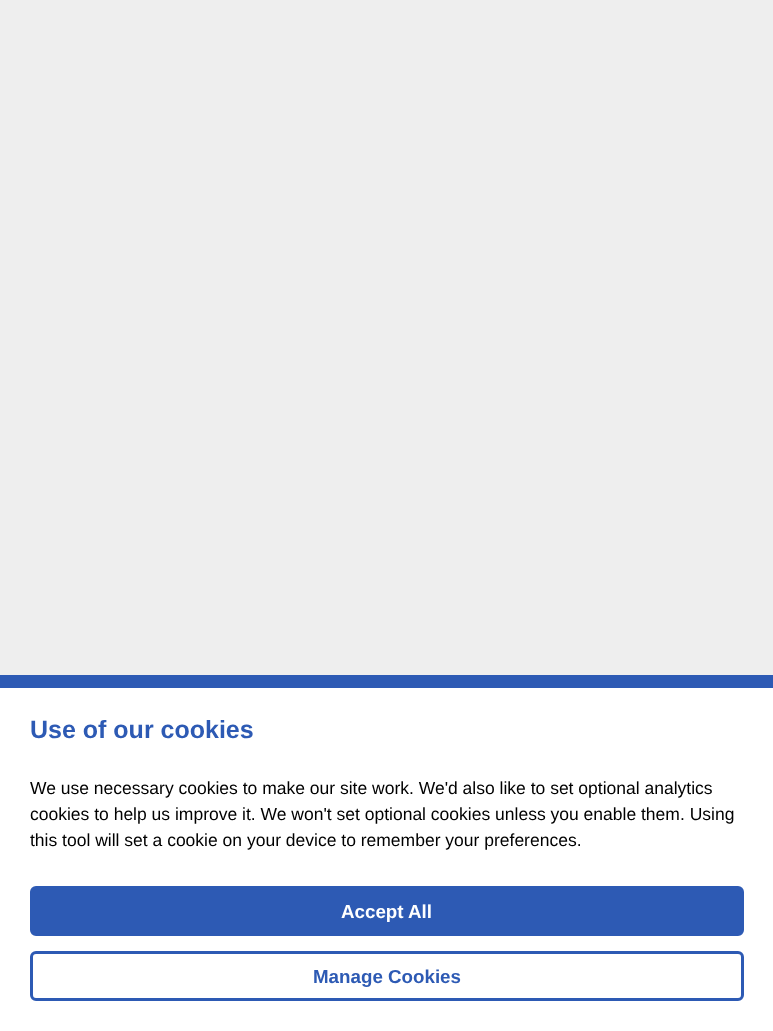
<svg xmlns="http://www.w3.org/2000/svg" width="773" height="1031">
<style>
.a{font:bold 25px Liberation Sans;fill:#2d5ab4}
.b{font:17.5px Liberation Sans;fill:#000}
.c{font:bold 18.75px Liberation Sans;fill:#fff}
.d{font:bold 18.75px Liberation Sans;fill:#2d5ab4}
</style>
<rect width="100%" height="100%" fill="#eee"/>
<path fill="#fff" d="M0 688h773v343H0z"/>
<path fill="#2d5ab4" d="M0 675h773v13H0z"/>
<rect fill="#2d5ab4" stroke="#2d5ab4" stroke-width="3" x="31.5" y="887.5" width="711" height="47" rx="4.5"/>
<rect fill="none" stroke="#2d5ab4" stroke-width="3" x="31.5" y="952.5" width="711" height="47" rx="4.5"/>
<text class="a" x="30" y="738">Use of our cookies</text>
<text class="b" x="30" y="794">We use necessary cookies to make our site work. We'd also like to set optional analytics</text>
<text class="b" x="30" y="820">cookies to help us improve it. We won't set optional cookies unless you enable them. Using</text>
<text class="b" x="30" y="846">this tool will set a cookie on your device to remember your preferences.</text>
<text class="c" x="341" y="918">Accept All</text>
<text class="d" x="313" y="983">Manage Cookies</text>
</svg>
